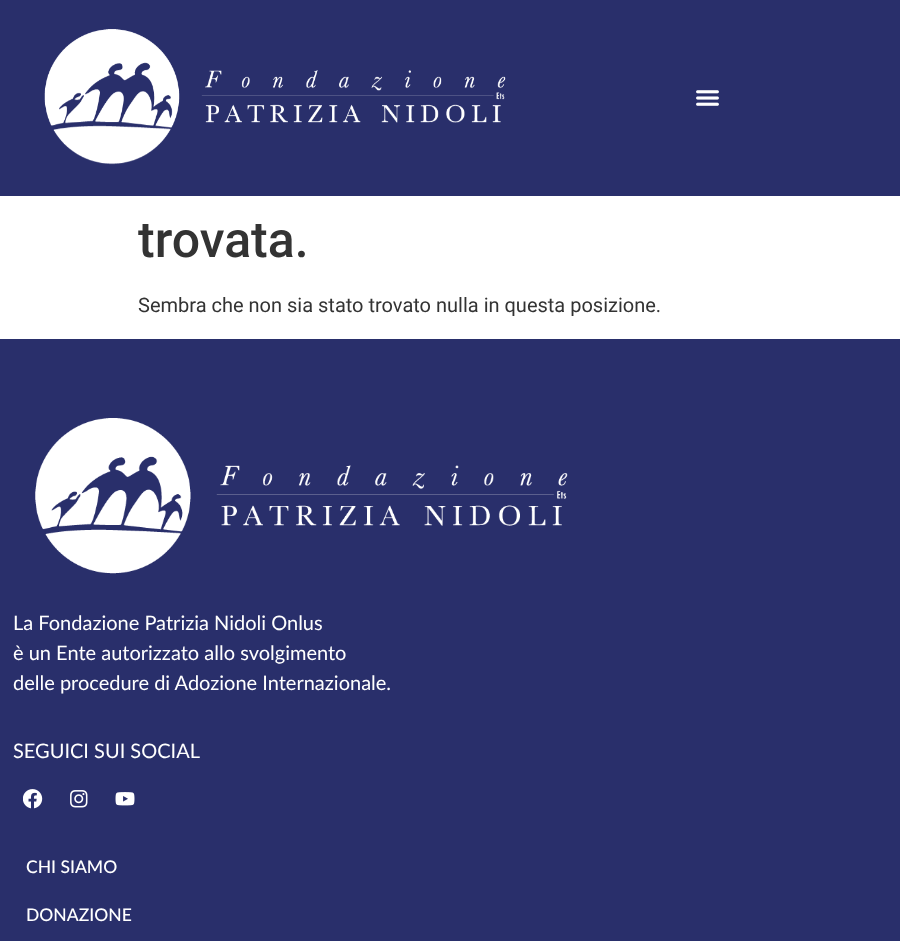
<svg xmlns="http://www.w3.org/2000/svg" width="900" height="941">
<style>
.a{font:500 50px Roboto;fill:#333}
.b{font:20px Roboto;fill:#333}
.c{font:20px Lato;fill:#fff}
.d{font:500 17.5px Lato;fill:#fff}
</style>
<rect width="100%" height="100%" fill="#fff"/>
<path fill="#292f6b" d="M0 0h900v196H0z"/>
<image href="1.png" x="44" y="29" width="462" height="136"/>
<image href="2.png" x="696" y="90" width="23" height="16"/>
<path fill="#292f6b" d="M0 339h900v602H0z"/>
<image href="3.png" x="35" y="418" width="533" height="156"/>
<image href="4.png" x="23" y="789" width="20" height="20"/>
<image href="5.png" x="70" y="790" width="18" height="18"/>
<image href="6.png" x="115" y="792" width="20" height="14"/>
<text class="a" x="138" y="257">trovata.</text>
<text class="b" x="138" y="312">Sembra che non sia stato trovato nulla in questa posizione.</text>
<text class="c" x="13" y="630">La Fondazione Patrizia Nidoli Onlus</text>
<text class="c" x="13" y="660">è un Ente autorizzato allo svolgimento</text>
<text class="c" x="13" y="690">delle procedure di Adozione Internazionale.</text>
<text class="c" x="13" y="758">SEGUICI SUI SOCIAL</text>
<text class="d" x="26" y="873">CHI SIAMO</text>
<text class="d" x="26" y="921">DONAZIONE</text>
</svg>
